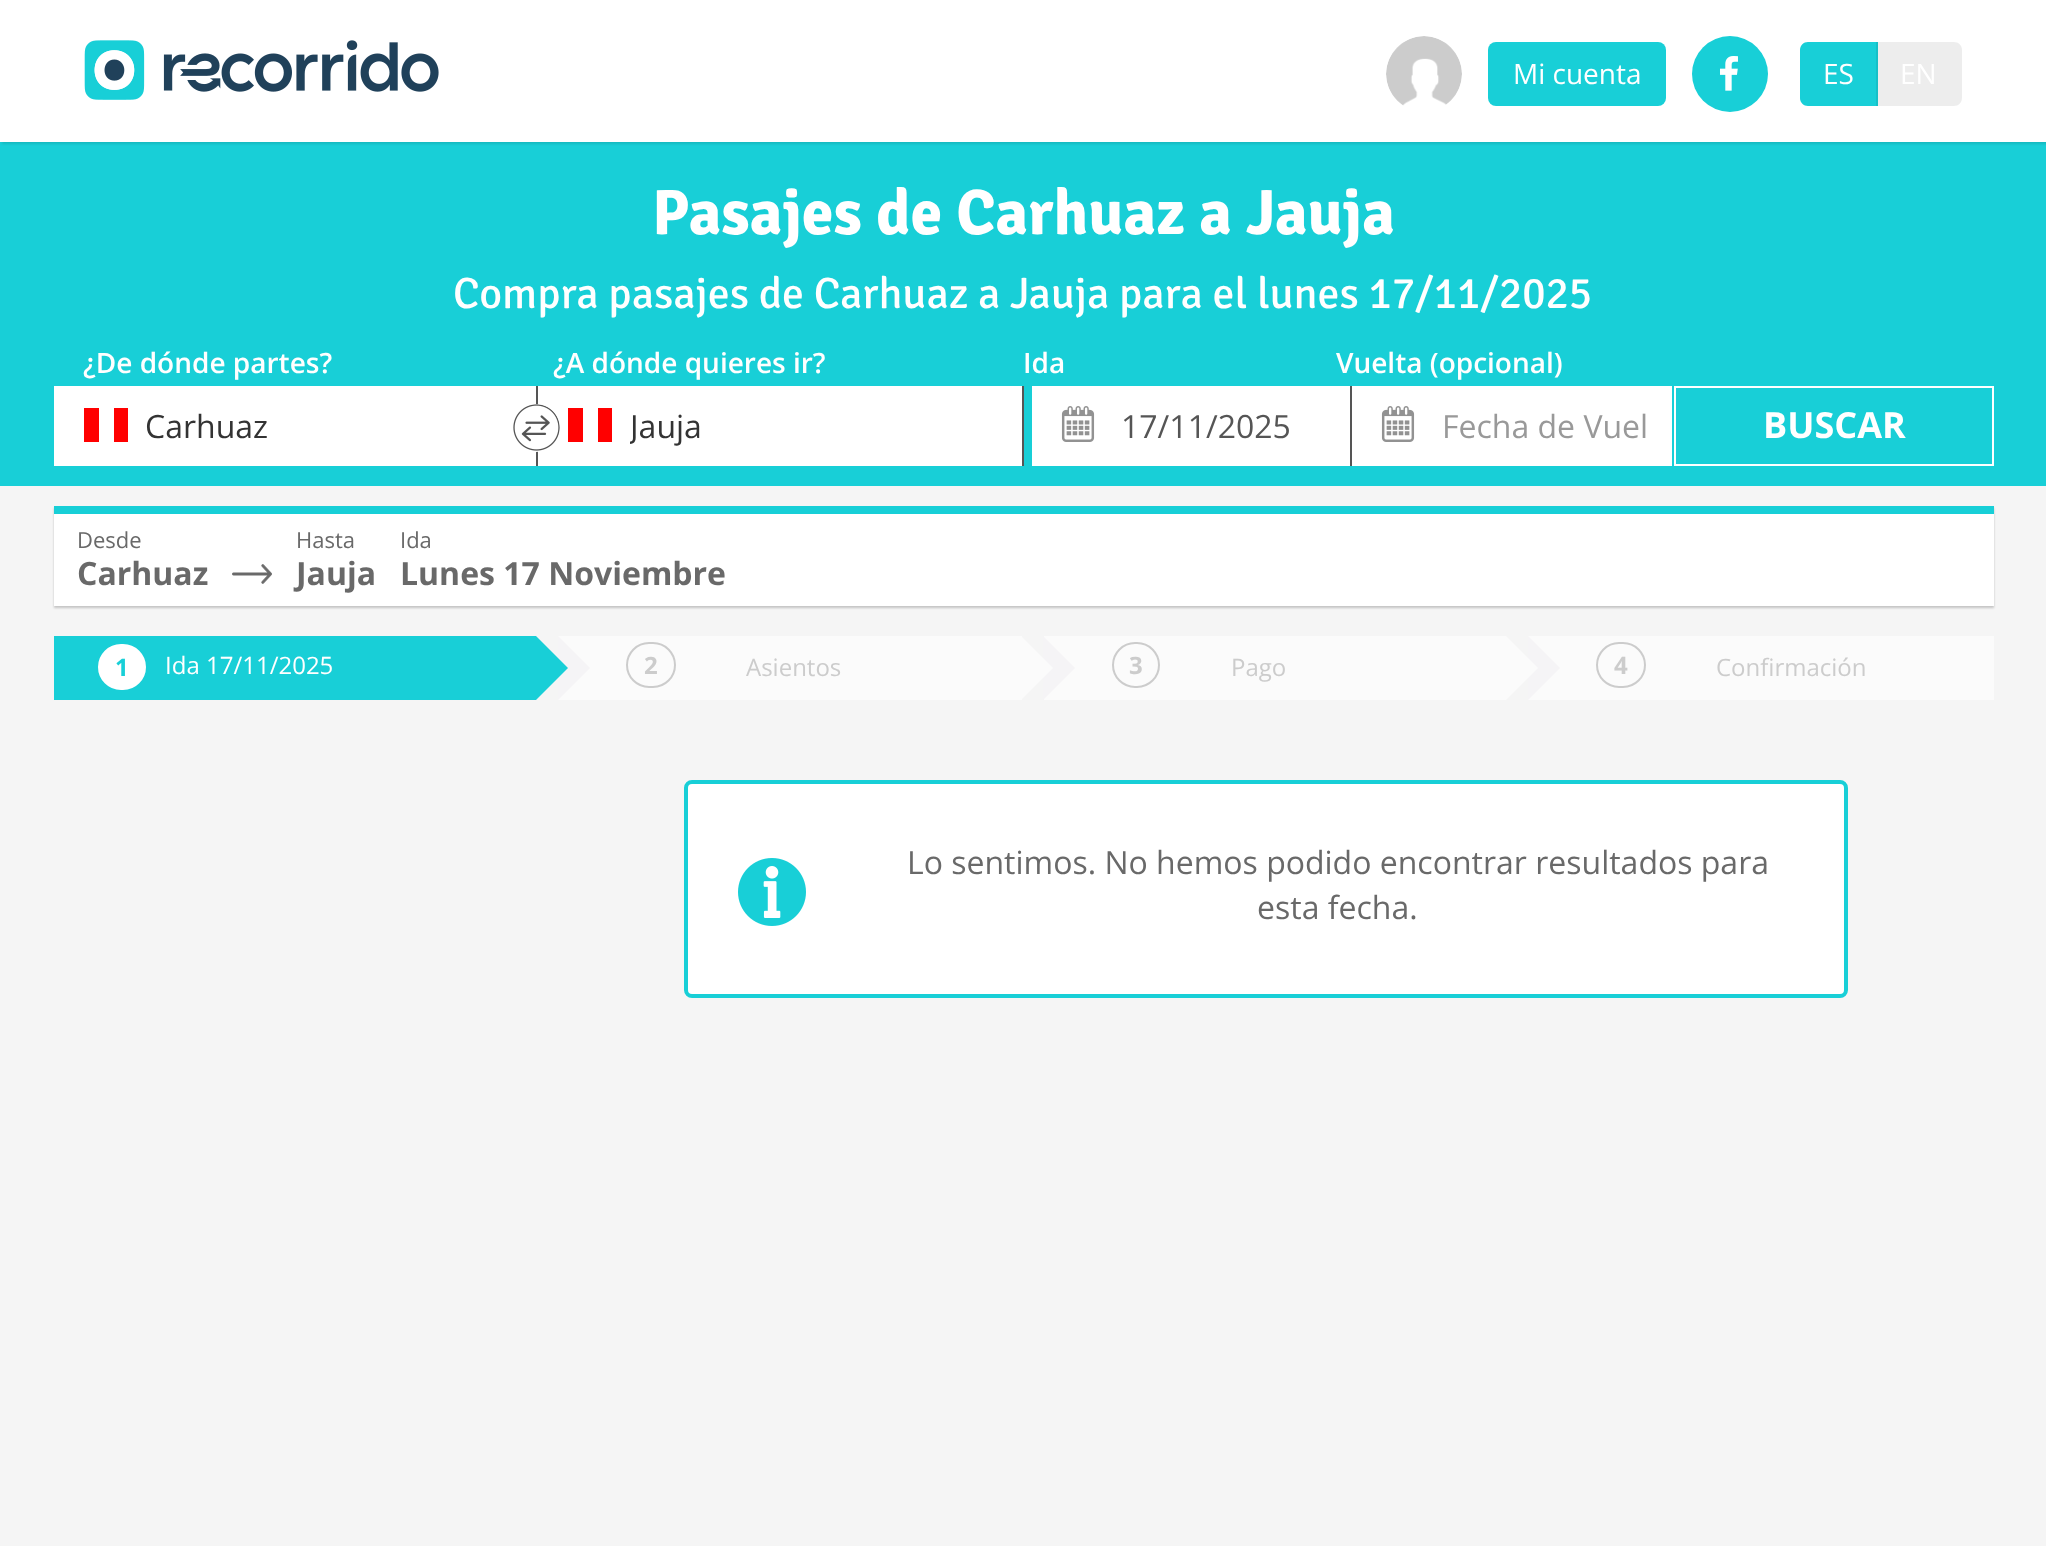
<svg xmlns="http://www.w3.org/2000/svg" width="2046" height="1546">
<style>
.a{font:28px Open Sans;fill:#fff}
.b{font:bold 64px Signika;fill:#fff}
.c{font:44px Signika;fill:#fff}
.d{font:600 28px Open Sans;fill:#fff}
.e{font:32px Open Sans;fill:#333}
.f{font:32px Open Sans;fill:#555}
.g{font:32px Open Sans;fill:#999}
.h{font:bold 36px Open Sans;fill:#fff}
.i{font:22px Open Sans;fill:#696969}
.j{font:bold 32px Open Sans;fill:#696969}
.k{font:bold 24px Open Sans;fill:#18cfd7}
.l{font:24px Open Sans;fill:#fff}
.m{font:bold 24px Open Sans;fill:#ccc}
.n{font:24px Open Sans;fill:#ccc}
.o{font:32px Open Sans;fill:#696969}
</style>
<defs>
<clipPath id="clip1"><path d="M630 406h72v40H630z"/></clipPath>
</defs>
<rect width="100%" height="100%" fill="#f5f5f5"/>
<path fill="#18cfd7" d="M0 142h2046v344H0z"/>
<path fill="#0000001a" filter="blur(1px)" d="M2 2h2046v142H2z"/>
<path fill="#fff" d="M0 0h2046v142H0z"/>
<image href="1.png" x="84" y="40" width="355" height="60"/>
<image href="2.png" x="1386" y="36" width="76" height="70"/>
<rect fill="#18cfd7" x="1488" y="42" width="178" height="64" rx="8"/>
<circle fill="#18cfd7" cx="1730" cy="74" r="38"/>
<image href="3.png" x="1720" y="56" width="18" height="35"/>
<path fill="#18cfd7" d="M1808 42h70v64h-70c-4.5 0-8-3.5-8-8v-48c0-4.5 3.5-8 8-8z"/>
<path fill="#00000012" d="M1876 42h78c4.5 0 8 3.5 8 8v48c0 4.5-3.5 8-8 8h-78z"/>
<path fill="#555" d="M536 386h2v80H536z"/>
<path fill="#fff" d="M54 386h482v80H54z"/>
<path fill="#f00" d="M84 408h15v34H84z"/>
<path fill="#f00" d="M114 408h14v34H114z"/>
<path fill="#fff" d="M538 386h484v80H538z"/>
<circle fill="#fff" cx="536" cy="428" r="24"/>
<image href="4.png" x="513" y="404" width="47" height="47"/>
<path fill="#555" d="M1022 386h2v80H1022z"/>
<path fill="#f00" d="M568 408h15v34H568z"/>
<path fill="#f00" d="M598 408h14v34H598z"/>
<path fill="#555" d="M1350 386h2v80H1350z"/>
<path fill="#fff" d="M1032 386h318v80H1032z"/>
<image href="5.png" x="1061" y="406" width="34" height="36"/>
<path fill="#fff" d="M1352 386h320v80H1352z"/>
<image href="5.png" x="1381" y="406" width="34" height="36"/>
<path fill="none" stroke="#fff" stroke-width="2" d="M1675 387h318v78H1675z"/>
<path fill="#00000033" filter="blur(1px)" d="M54 508h1940v100H54z"/>
<path fill="#fff" d="M54 514h1940v92H54z"/>
<path fill="#18cfd7" d="M54 506h1940v8H54z"/>
<image href="6.png" x="232" y="564" width="40" height="20"/>
<path fill="#18cfd7" d="M54 636h482v64H54z"/>
<rect fill="#fff" stroke="#fff" stroke-width="2" x="99" y="645" width="46" height="44" rx="22"/>
<path fill="#fbfbfb" d="M558 636h464v64H558z"/>
<path fill="#f5f4f6" d="M558 700v-64l32 32z"/>
<path fill="#18cfd7" d="M536 700v-64l32 32z"/>
<rect fill="none" stroke="#ccc" stroke-width="2" x="627" y="643" width="48" height="44" rx="22"/>
<path fill="#fbfbfb" d="M1044 636h462v64H1044z"/>
<path fill="#f5f4f6" d="M1043 700v-64l32 32z"/>
<path fill="#fbfbfb" d="M1021 700v-64l32 32z"/>
<rect fill="none" stroke="#ccc" stroke-width="2" x="1113" y="643" width="46" height="44" rx="22"/>
<path fill="#fbfbfb" d="M1528 636h466v64H1528z"/>
<path fill="#f5f4f6" d="M1528 700v-64l32 32z"/>
<path fill="#fbfbfb" d="M1506 700v-64l32 32z"/>
<rect fill="none" stroke="#ccc" stroke-width="2" x="1597" y="643" width="48" height="44" rx="22"/>
<rect fill="#fff" stroke="#18cfd7" stroke-width="4" x="686" y="782" width="1160" height="214" rx="6"/>
<image href="7.png" x="738" y="858" width="68" height="68"/>
<text class="a" x="1513" y="84">Mi cuenta</text>
<text class="a" x="1823" y="84">ES</text>
<text class="a" x="1900" y="84">EN</text>
<text class="b" x="652" y="234">Pasajes de Carhuaz a Jauja</text>
<text class="c" x="453" y="308">Compra pasajes de Carhuaz a Jauja para el lunes 17/11/2025</text>
<text class="d" x="83" y="373">¿De dónde partes?</text>
<text class="d" x="553" y="373">¿A dónde quieres ir?</text>
<text class="d" x="1023" y="373">Ida</text>
<text class="d" x="1336" y="373">Vuelta (opcional)</text>
<text class="e" x="145" y="438">Carhuaz</text>
<g clip-path="url(#clip1)">
<text class="e" x="630" y="438">Jauja</text>
</g>
<text class="f" x="1121" y="438">17/11/2025</text>
<text class="g" x="1442" y="438">Fecha de Vuel</text>
<text class="h" x="1763" y="438">BUSCAR</text>
<text class="i" x="77" y="548">Desde</text>
<text class="j" x="77" y="585">Carhuaz</text>
<text class="i" x="296" y="548">Hasta</text>
<text class="j" x="296" y="585">Jauja</text>
<text class="i" x="400" y="548">Ida</text>
<text class="j" x="400" y="585">Lunes 17 Noviembre</text>
<text class="k" x="115" y="676">1</text>
<text class="l" x="165" y="674">Ida 17/11/2025</text>
<text class="m" x="644" y="674">2</text>
<text class="n" x="746" y="676">Asientos</text>
<text class="m" x="1129" y="674">3</text>
<text class="n" x="1231" y="676">Pago</text>
<text class="m" x="1614" y="674">4</text>
<text class="n" x="1716" y="676">Confirmación</text>
<text class="o" x="907" y="874">Lo sentimos. No hemos podido encontrar resultados para</text>
<text class="o" x="1257" y="919">esta fecha.</text>
</svg>
